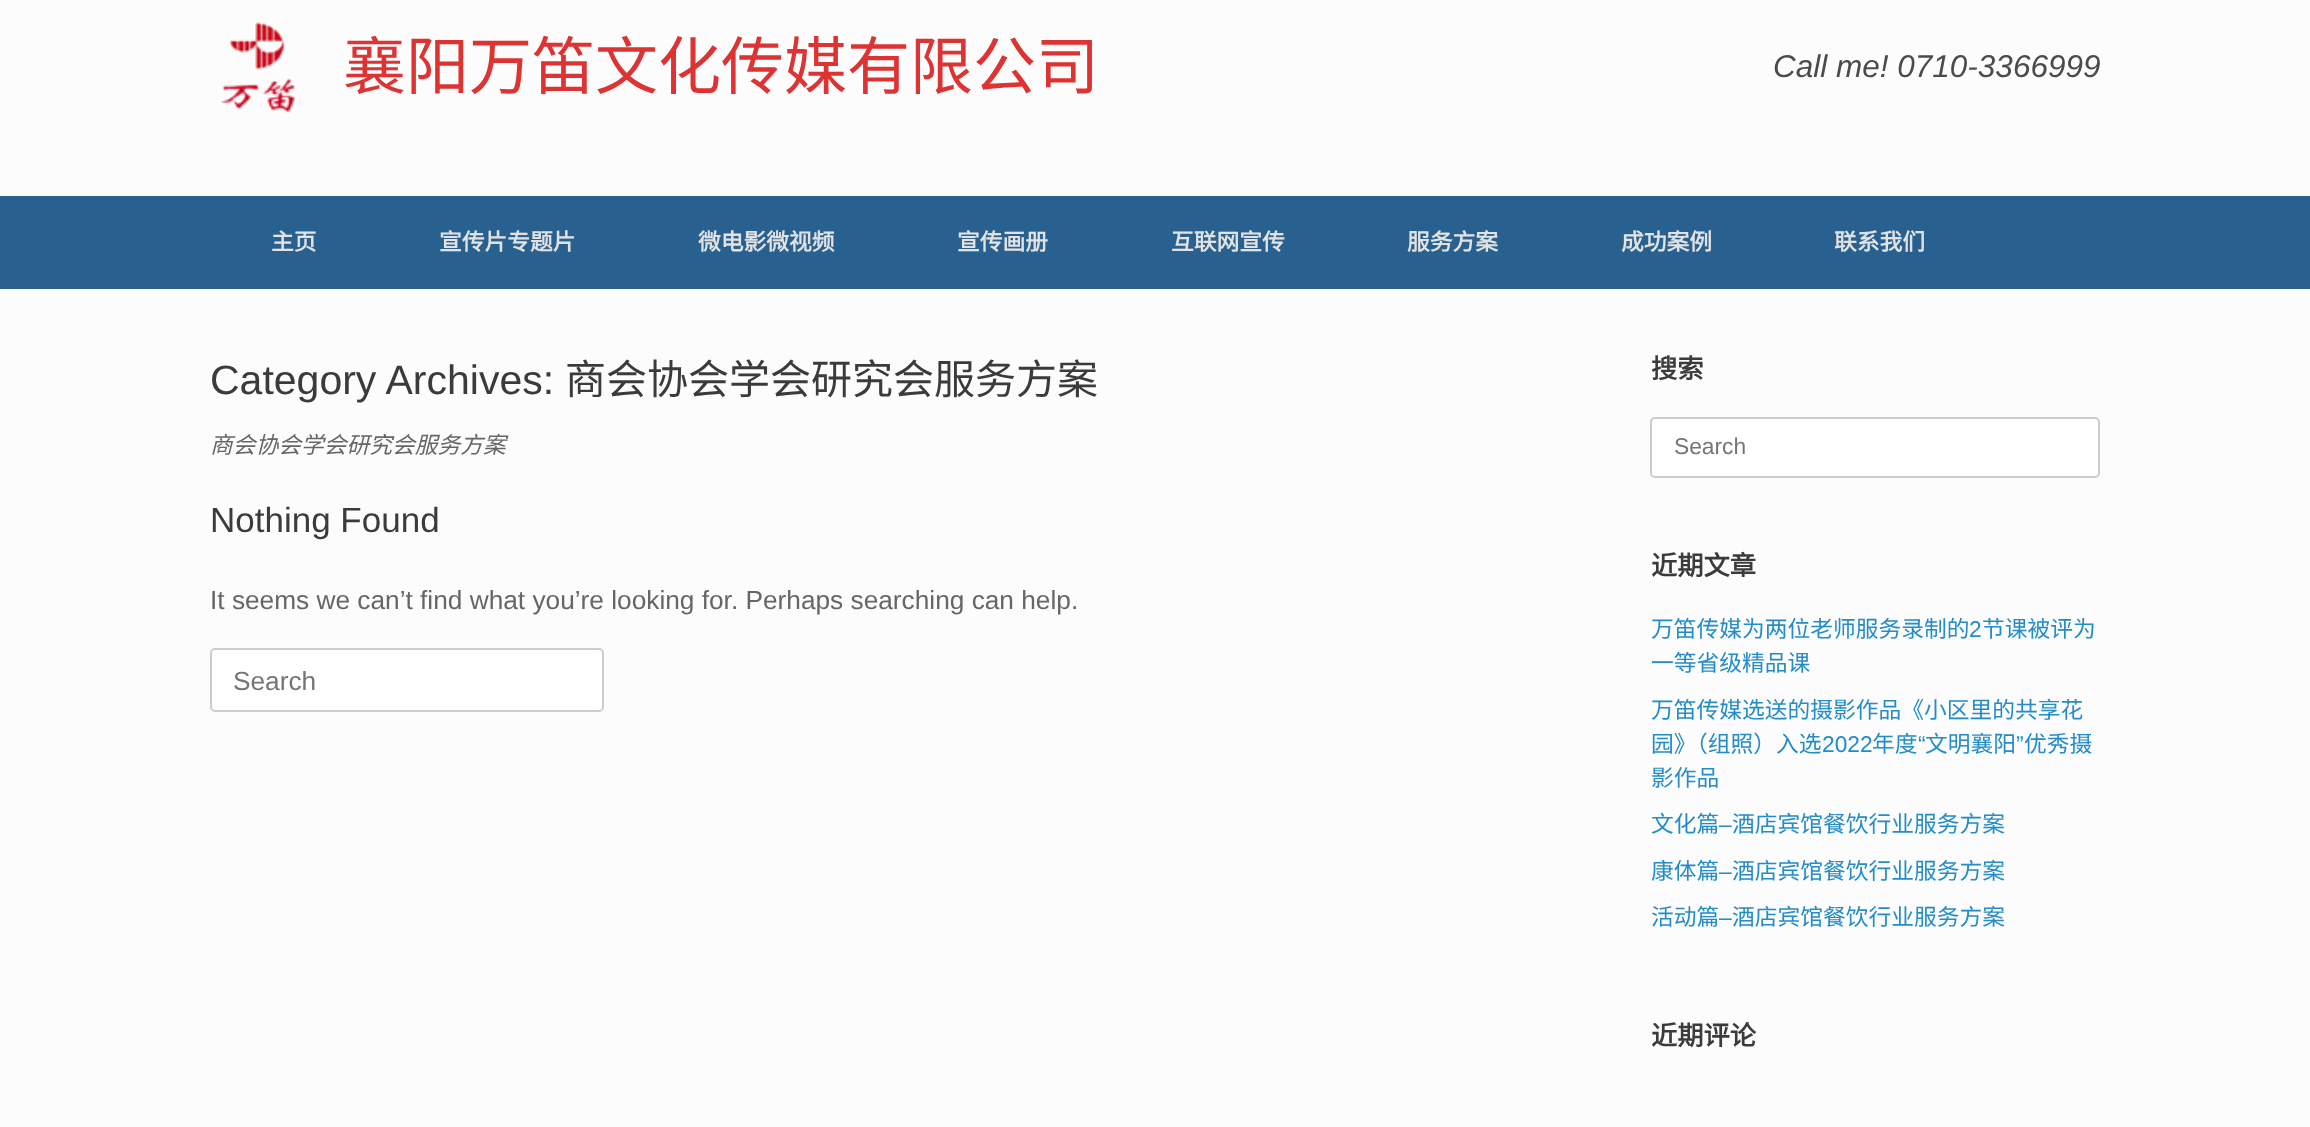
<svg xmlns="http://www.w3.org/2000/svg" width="2310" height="1127">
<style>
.a{font:63px Noto Sans CJK SC;fill:#d33}
.b{font:italic 31.5px Liberation Sans;fill:#4b4b4b}
.c{font:bold 22.75px Noto Sans CJK SC;fill:#e2e2e2}
.d{font:41px Liberation Sans;fill:#3b3b3b}
.e{font:41px Noto Sans CJK SC;fill:#3b3b3b}
.f{font:italic 22.75px Noto Sans CJK SC;fill:#666}
.g{font:35px Liberation Sans;fill:#3b3b3b}
.h{font:26.25px Liberation Sans;fill:#666}
.i{font:26.25px Liberation Sans;fill:#757575}
.j{font:bold 26.25px Noto Sans CJK SC;fill:#3b3b3b}
.k{font:22.75px Liberation Sans;fill:#757575}
.l{font:22.75px Noto Sans CJK SC;fill:#248cc8}
.m{font:22.75px Liberation Sans;fill:#248cc8}
</style>
<rect width="100%" height="100%" fill="#fcfcfc"/>
<image href="1.png" x="220" y="22" width="76" height="90"/>
<path fill="#286090" d="M0 196h2310v93H0z"/>
<rect fill="#fff" stroke="#ccc" stroke-width="2" x="211" y="649" width="392" height="62" rx="4"/>
<rect fill="#fff" stroke="#ccc" stroke-width="2" x="1651" y="418" width="448" height="59" rx="4"/>
<text class="a" x="343" y="89">襄阳万笛文化传媒有限公司</text>
<text class="b" x="1773" y="77">Call me! 0710-3366999</text>
<text class="c" x="271" y="250">主页</text>
<text class="c" x="439" y="250">宣传片专题片</text>
<text class="c" x="698" y="250">微电影微视频</text>
<text class="c" x="957" y="250">宣传画册</text>
<text class="c" x="1171" y="250">互联网宣传</text>
<text class="c" x="1407" y="250">服务方案</text>
<text class="c" x="1621" y="250">成功案例</text>
<text class="c" x="1834" y="250">联系我们</text>
<text class="d" x="210" y="394">Category Archives:</text>
<text class="e" x="565" y="394">商会协会学会研究会服务方案</text>
<text class="f" x="210" y="453">商会协会学会研究会服务方案</text>
<text class="g" x="210" y="532">Nothing Found</text>
<text class="h" x="210" y="609">It seems we can’t find what you’re looking for. Perhaps searching can help.</text>
<text class="i" x="233" y="690">Search</text>
<text class="j" x="1651" y="378">搜索</text>
<text class="k" x="1674" y="454">Search</text>
<text class="j" x="1651" y="575">近期文章</text>
<text class="l" x="1651" y="637">万笛传媒为两位老师服务录制的</text>
<text class="m" x="1969" y="637">2</text>
<text class="l" x="1982" y="637">节课被评为</text>
<text class="l" x="1651" y="671">一等省级精品课</text>
<text class="l" x="1651" y="718">万笛传媒选送的摄影作品《小区里的共享花</text>
<text class="l" x="1651" y="752">园》（组照）入选</text>
<text class="m" x="1822" y="752">2022</text>
<text class="l" x="1872" y="752">年度</text>
<text class="m" x="1918" y="752">“</text>
<text class="l" x="1925" y="752">文明襄阳</text>
<text class="m" x="2016" y="752">”</text>
<text class="l" x="2024" y="752">优秀摄</text>
<text class="l" x="1651" y="786">影作品</text>
<text class="l" x="1651" y="832">文化篇</text>
<text class="m" x="1719" y="832">–</text>
<text class="l" x="1732" y="832">酒店宾馆餐饮行业服务方案</text>
<text class="l" x="1651" y="879">康体篇</text>
<text class="m" x="1719" y="879">–</text>
<text class="l" x="1732" y="879">酒店宾馆餐饮行业服务方案</text>
<text class="l" x="1651" y="925">活动篇</text>
<text class="m" x="1719" y="925">–</text>
<text class="l" x="1732" y="925">酒店宾馆餐饮行业服务方案</text>
<text class="j" x="1651" y="1045">近期评论</text>
</svg>
